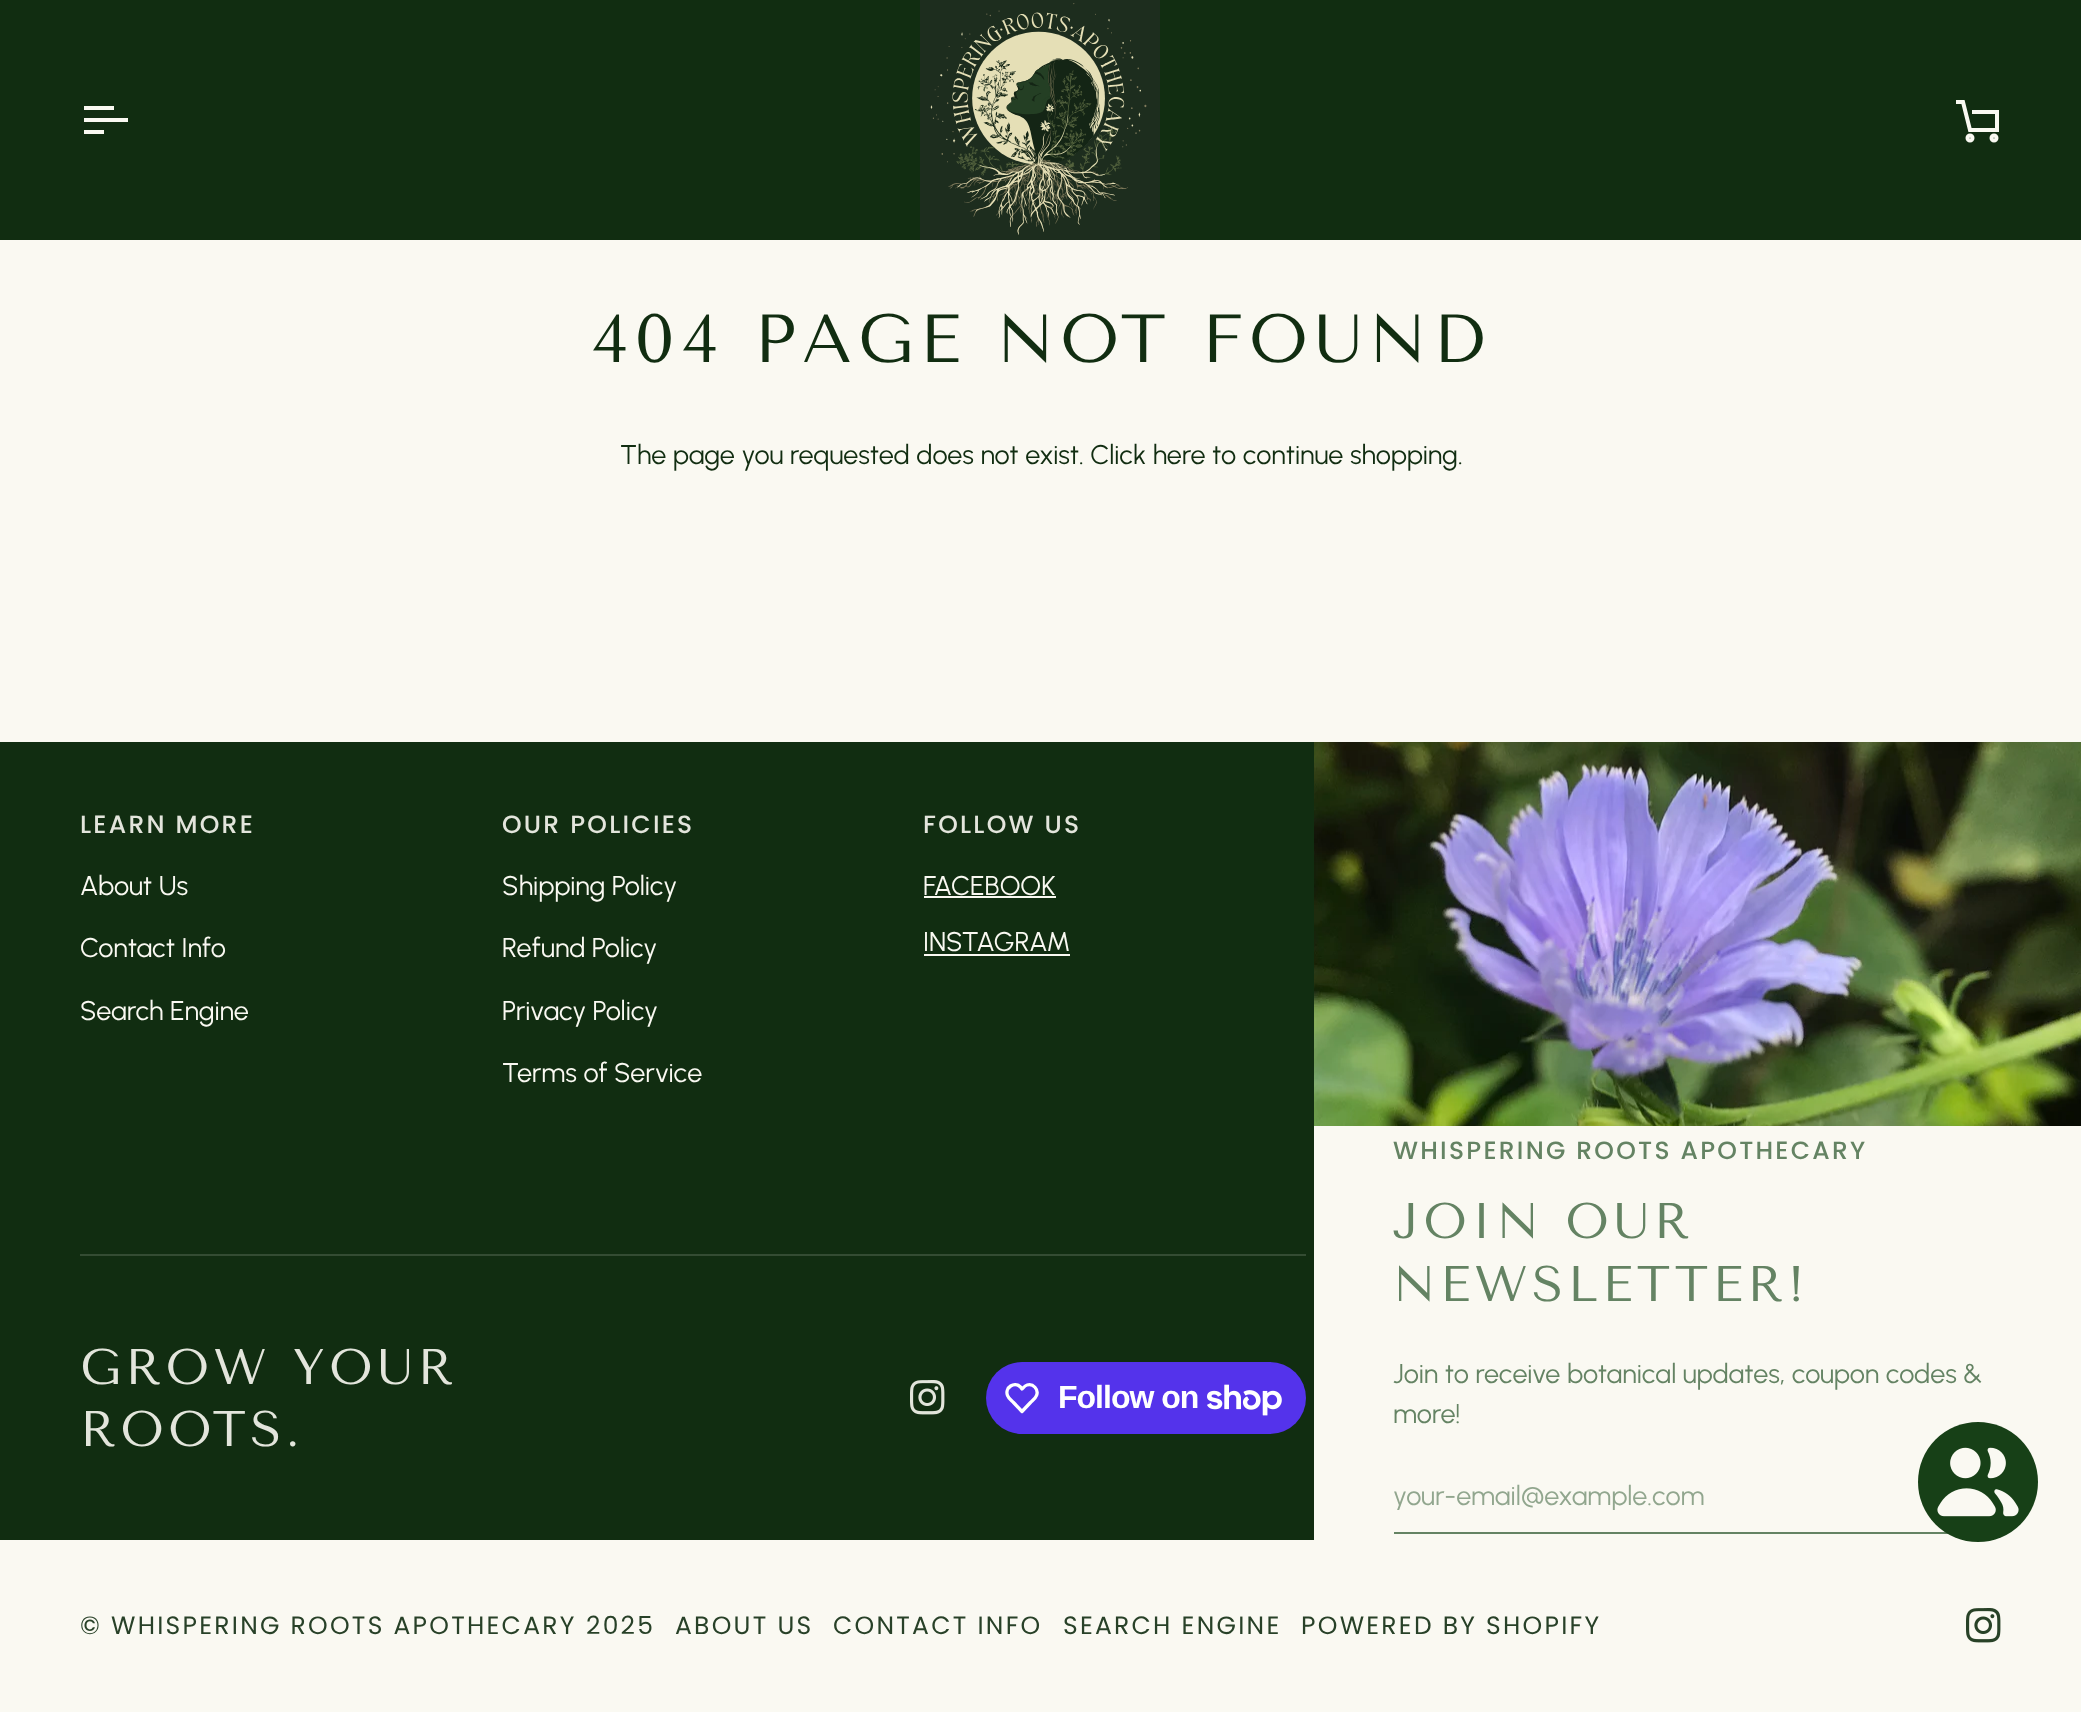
<svg xmlns="http://www.w3.org/2000/svg" width="2081" height="1712">
<style>
.a{font:68px Tenor Sans;letter-spacing:6.1px;fill:#112d11}
.b{font:27px Urbanist;fill:#112d11}
.c{font:500 25px Poppins;letter-spacing:2.25px;fill:#e3e5dc}
.d{font:27px Urbanist;fill:#faf9f2}
.e{font:50px Tenor Sans;letter-spacing:4.5px;fill:#e3e5dc}
.f{font:bold 32px Liberation Sans;letter-spacing:-1px;fill:#fff}
.g{font:500 25px Poppins;letter-spacing:2.25px;fill:#648363}
.h{font:50px Tenor Sans;letter-spacing:4.5px;fill:#648363}
.i{font:27px Urbanist;fill:#648363}
.j{font:27px Urbanist;fill:#91a68e}
.k{font:25px Poppins;letter-spacing:2.25px;fill:#284128}
</style>
<defs>
<clipPath id="clip1"><path d="M1394 1478h522v32H1394z"/></clipPath>
</defs>
<rect width="100%" height="100%" fill="#faf9f2"/>
<path fill="#112d11" d="M0 0h2081v240H0z"/>
<path fill="none" stroke="#faf9f2" stroke-width="4" stroke-linecap="square" d="M112 108h-26m40 12h-40m16 12h-16"/>
<image href="1.png" x="920" y="0" width="240" height="240"/>
<path fill="none" stroke="#faf9f2" stroke-width="4" d="M1956 102h7l7 28h27v-18h-25"/>
<circle fill="none" stroke="#faf9f2" stroke-width="4" cx="1970" cy="138" r="2.5"/>
<circle fill="none" stroke="#faf9f2" stroke-width="4" cx="1994" cy="138" r="2.5"/>
<path fill="#112d11" d="M0 742h1314v798H0z"/>
<path fill="#faf9f2" d="M924 896h132v2H924z"/>
<path fill="#faf9f2" d="M924 954h146v2H924z"/>
<path fill="#344c33" d="M80 1254h1226v2H80z"/>
<image href="2.png" x="910" y="1380" width="35" height="35"/>
<rect fill="#5433eb" x="986" y="1362" width="320" height="72" rx="36"/>
<path fill="none" stroke="#fff" stroke-width="3.3" stroke-linejoin="round" d="M1020.5 1387l1.5 2c1.5-1.5 3-3.5 5-4c6-2 12 4.5 9.5 10.5c-1 3-4 5-6 7l-8.5 9l-8.5-9c-2-2-5-4-6-7c-3-8 7-14.5 13-8.5z"/>
<image href="3.png" x="1207" y="1384" width="75" height="32"/>
<image href="4.png" x="1314" y="742" width="767" height="384"/>
<path fill="#648363" d="M1394 1532h555v2H1394z"/>
<circle fill="#174017" cx="1978" cy="1482" r="60"/>
<image href="5.png" x="1937" y="1447" width="82" height="70"/>
<image href="6.png" x="1966" y="1608" width="35" height="35"/>
<text class="a" x="591" y="362">404 PAGE NOT FOUND</text>
<text class="b" x="620" y="464">The page you requested does not exist. Click here to continue shopping.</text>
<text class="c" x="80" y="833">LEARN MORE</text>
<text class="d" x="80" y="895">About Us</text>
<text class="d" x="80" y="957">Contact Info</text>
<text class="d" x="80" y="1020">Search Engine</text>
<text class="c" x="502" y="833">OUR POLICIES</text>
<text class="d" x="502" y="895">Shipping Policy</text>
<text class="d" x="502" y="957">Refund Policy</text>
<text class="d" x="502" y="1020">Privacy Policy</text>
<text class="d" x="502" y="1082">Terms of Service</text>
<text class="c" x="923" y="833">FOLLOW US</text>
<text class="d" x="923" y="895">FACEBOOK</text>
<text class="d" x="923" y="951">INSTAGRAM</text>
<text class="e" x="80" y="1384">GROW YOUR</text>
<text class="e" x="80" y="1446">ROOTS.</text>
<text class="f" x="1058" y="1408">Follow on</text>
<text class="g" x="1393" y="1159">WHISPERING ROOTS APOTHECARY</text>
<text class="h" x="1393" y="1238">JOIN OUR</text>
<text class="h" x="1393" y="1301">NEWSLETTER!</text>
<text class="i" x="1393" y="1383">Join to receive botanical updates, coupon codes &amp;</text>
<text class="i" x="1393" y="1423">more!</text>
<g clip-path="url(#clip1)">
<text class="j" x="1393" y="1505">your-email@example.com</text>
</g>
<text class="k" x="80" y="1634">© WHISPERING ROOTS APOTHECARY</text>
<text class="k" x="586" y="1634">2025</text>
<text class="k" x="675" y="1634">ABOUT US</text>
<text class="k" x="833" y="1634">CONTACT INFO</text>
<text class="k" x="1063" y="1634">SEARCH ENGINE</text>
<text class="k" x="1301" y="1634">POWERED BY SHOPIFY</text>
</svg>
